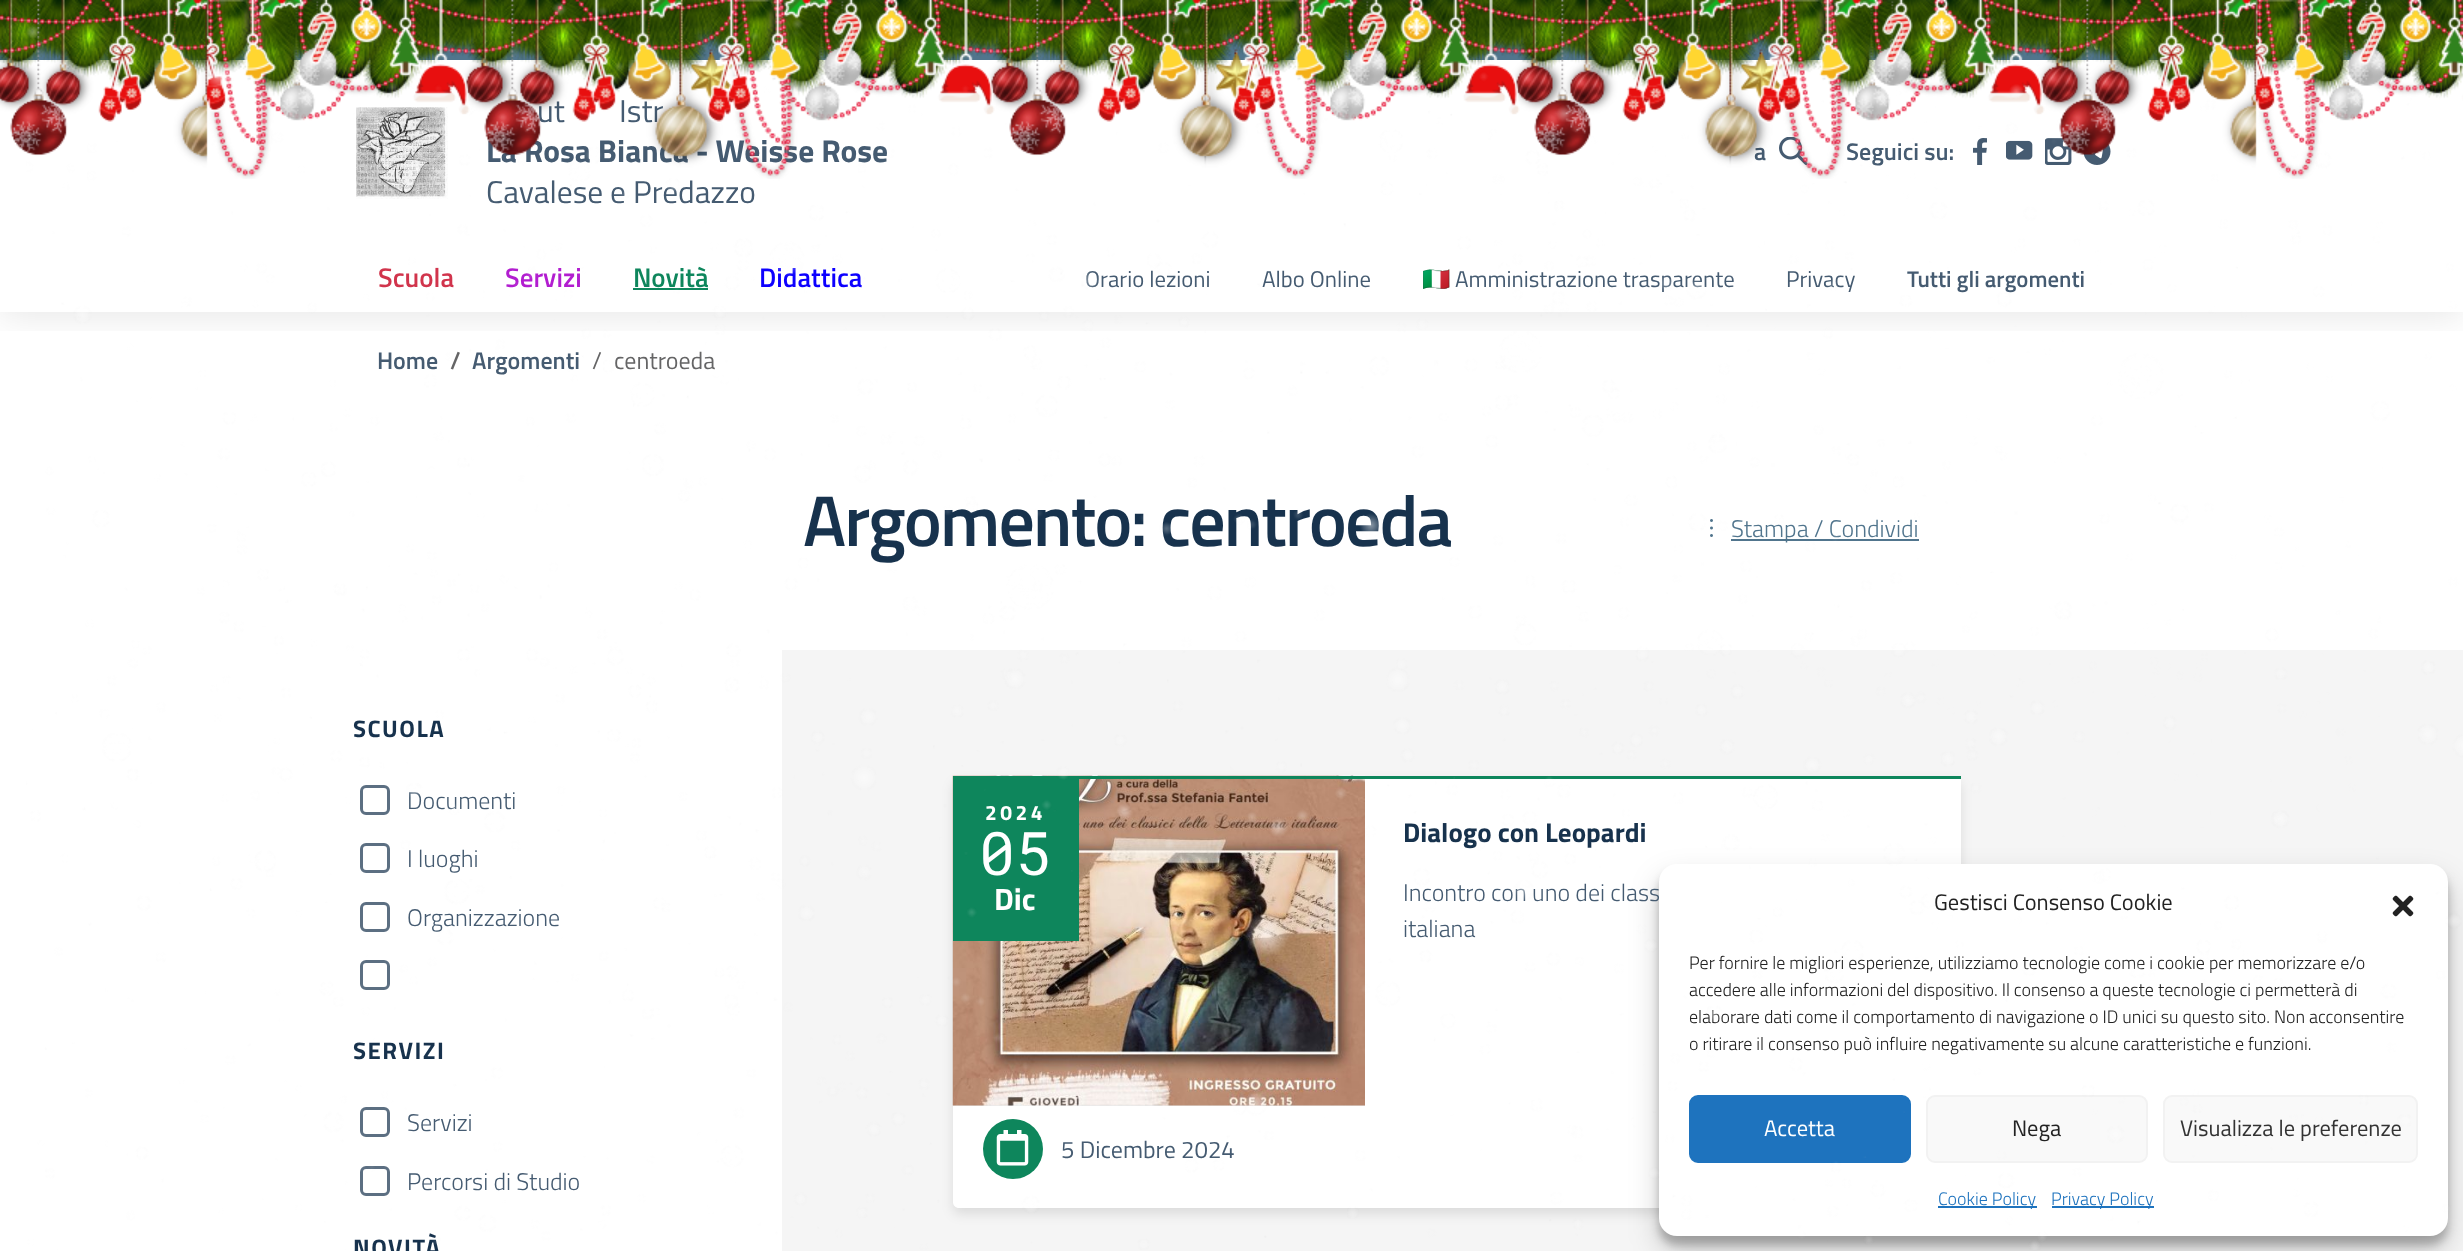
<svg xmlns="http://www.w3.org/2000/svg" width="2463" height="1251">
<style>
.a{font:31.5px Titillium Web;fill:#455b71}
.b{font:bold 31.5px Titillium Web;fill:#455b71}
.c{font:600 24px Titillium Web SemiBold;fill:#455b71}
.d{font:600 27px Titillium Web SemiBold;fill:#d1344c}
.e{font:600 27px Titillium Web SemiBold;fill:#b21dd0}
.f{font:600 27px Titillium Web SemiBold;fill:#0e865c}
.g{font:600 27px Titillium Web SemiBold;fill:#0d00ff}
.h{font:22.75px Titillium Web;fill:#455b71}
.i{font:22.75px Noto Color Emoji;fill:#455b71}
.j{font:600 22.75px Titillium Web SemiBold;fill:#455b71}
.k{font:600 24px Titillium Web SemiBold;fill:#656566}
.l{font:24px Titillium Web;fill:#656566}
.m{font:600 72px Titillium Web SemiBold;letter-spacing:-1.95px;fill:#17324d}
.n{font:300 24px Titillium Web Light;fill:#51758d}
.o{font:bold 24px Titillium Web;letter-spacing:1.5px;fill:#17324d}
.p{font:300 24px Titillium Web Light;fill:#455b71}
.q{font:bold 21px Titillium Web;letter-spacing:3.5px;fill:#fff}
.r{font:60px Roboto Mono;fill:#fff}
.s{font:bold 31px Titillium Web;fill:#fff}
.t{font:bold 27.1px Titillium Web;fill:#17324d}
.u{font:24px Titillium Web;fill:#455b71}
.v{font:22.5px Titillium Web;fill:#222}
.w{font:300 18px Titillium Web Light;fill:#222}
.x{font:22.5px Titillium Web;fill:#fff}
.y{font:22.5px Titillium Web;fill:#333}
.z{font:300 18px Titillium Web Light;fill:#1e73be}
</style>
<defs>
<clipPath id="clip1"><path d="M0 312h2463v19H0z"/></clipPath>
</defs>
<rect width="100%" height="100%" fill="#fff"/>
<g clip-path="url(#clip1)">
<path fill="#0000001a" filter="blur(18.5px)" d="M0 3h2463v312H0z"/>
</g>
<path fill="#51758d" d="M0 0h2463v60H0z"/>
<image href="3.png" x="2089" y="37" width="10" height="13"/>
<image href="4.png" x="356" y="107" width="92" height="92"/>
<image href="5.png" x="1779" y="137" width="29" height="28"/>
<image href="6.png" x="1973" y="138" width="14" height="27"/>
<image href="7.png" x="2006" y="140" width="27" height="20"/>
<image href="8.png" x="2045" y="138" width="27" height="27"/>
<image href="9.png" x="2084" y="143" width="27" height="22"/>
<path fill="#0e865c" d="M633 288h75v2H633z"/>
<image href="10.png" x="1710" y="519" width="3" height="18"/>
<path fill="#51758d" d="M1731 539h188v2H1731z"/>
<path fill="#f5f5f5" d="M782 650h1681v601H782z"/>
<rect fill="none" stroke="#5c6f82" stroke-width="3" x="361.5" y="786.5" width="27" height="27" rx="4.5"/>
<rect fill="none" stroke="#5c6f82" stroke-width="3" x="361.5" y="844.5" width="27" height="27" rx="4.5"/>
<rect fill="none" stroke="#5c6f82" stroke-width="3" x="361.5" y="903.5" width="27" height="27" rx="4.5"/>
<rect fill="none" stroke="#5c6f82" stroke-width="3" x="361.5" y="961.5" width="27" height="27" rx="4.5"/>
<rect fill="none" stroke="#5c6f82" stroke-width="3" x="361.5" y="1108.5" width="27" height="27" rx="4.5"/>
<rect fill="none" stroke="#5c6f82" stroke-width="3" x="361.5" y="1167.5" width="27" height="27" rx="4.5"/>
<rect fill="#0000001a" filter="blur(6px)" x="953" y="782" width="1008" height="432" rx="6"/>
<path fill="#fff" d="M953 776h1008v426c0 3.5-2.5 6-6 6h-996c-3.5 0-6-2.5-6-6z"/>
<path fill="#e7eaed" d="M953 1105h412v1H953z"/>
<image href="11.png" x="952" y="775" width="413" height="331"/>
<path fill="#0e865c" d="M953 776h1008v3H953z"/>
<path fill="#0e865c" d="M953 779h126v162H953z"/>
<circle fill="#0e865c" cx="1013" cy="1149" r="30"/>
<image href="12.png" x="996" y="1130" width="33" height="36"/>
<rect fill="#0000003b" filter="blur(4.5px)" x="1659" y="873" width="789" height="372" rx="18"/>
<rect fill="#00000030" filter="blur(15px)" x="1659" y="879" width="789" height="372" rx="18"/>
<rect fill="#fff" x="1659" y="864" width="789" height="372" rx="18"/>
<image href="13.png" x="2392" y="895" width="22" height="22"/>
<rect fill="#1e73be" stroke="#1e73be" stroke-width="2" x="1690" y="1096" width="220" height="66" rx="8"/>
<rect fill="#f9f9f9" stroke="#f2f2f2" stroke-width="2" x="1927" y="1096" width="220" height="66" rx="8"/>
<rect fill="#f9f9f9" stroke="#f2f2f2" stroke-width="2" x="2164" y="1096" width="253" height="66" rx="8"/>
<path fill="#1e73be" d="M1938 1206h99v2H1938z"/>
<path fill="#1e73be" d="M2052 1206h102v2H2052z"/>
<text class="a" x="537" y="122">ut</text>
<text class="a" x="619" y="122">Istr</text>
<text class="b" x="486" y="162">La Rosa Bianca - Weisse Rose</text>
<text class="a" x="486" y="203">Cavalese e Predazzo</text>
<text class="c" x="1754" y="160">a</text>
<text class="c" x="1846" y="160">Seguici su:</text>
<image href="1.png" x="0" y="0" width="2463" height="179"/>
<text class="d" x="378" y="287">Scuola</text>
<text class="e" x="505" y="287">Servizi</text>
<text class="f" x="633" y="287">Novità</text>
<text class="g" x="759" y="287">Didattica</text>
<text class="h" x="1085" y="287">Orario lezioni</text>
<text class="h" x="1262" y="287">Albo Online</text>
<text class="i" x="1422" y="287">🇮🇹</text>
<text class="h" x="1455" y="287">Amministrazione trasparente</text>
<text class="h" x="1786" y="287">Privacy</text>
<text class="j" x="1907" y="287">Tutti gli argomenti</text>
<text class="c" x="377" y="369">Home</text>
<text class="k" x="450" y="369">/</text>
<text class="c" x="472" y="369">Argomenti</text>
<text class="l" x="592" y="369">/</text>
<text class="l" x="614" y="369">centroeda</text>
<text class="m" x="803" y="546">Argomento: centroeda</text>
<text class="n" x="1731" y="537">Stampa / Condividi</text>
<text class="o" x="353" y="737">SCUOLA</text>
<text class="p" x="407" y="809">Documenti</text>
<text class="p" x="407" y="867">I luoghi</text>
<text class="p" x="407" y="926">Organizzazione</text>
<text class="o" x="353" y="1059">SERVIZI</text>
<text class="p" x="407" y="1131">Servizi</text>
<text class="p" x="407" y="1190">Percorsi di Studio</text>
<text class="o" x="353" y="1256">NOVITÀ</text>
<text class="q" x="985" y="820">2024</text>
<text class="r" x="979" y="875">05</text>
<text class="s" x="994" y="910">Dic</text>
<text class="t" x="1403" y="842">Dialogo con Leopardi</text>
<text class="p" x="1403" y="901">Incontro con uno dei class</text>
<text class="p" x="1403" y="937">italiana</text>
<text class="u" x="1061" y="1158">5 Dicembre 2024</text>
<text class="v" x="1934" y="910">Gestisci Consenso Cookie</text>
<text class="w" x="1689" y="969">Per fornire le migliori esperienze, utilizziamo tecnologie come i cookie per memorizzare e/o</text>
<text class="w" x="1689" y="996">accedere alle informazioni del dispositivo. Il consenso a queste tecnologie ci permetterà di</text>
<text class="w" x="1689" y="1023">elaborare dati come il comportamento di navigazione o ID unici su questo sito. Non acconsentire</text>
<text class="w" x="1689" y="1050">o ritirare il consenso può influire negativamente su alcune caratteristiche e funzioni.</text>
<text class="x" x="1764" y="1136">Accetta</text>
<text class="v" x="2012" y="1136">Nega</text>
<text class="y" x="2180" y="1136">Visualizza le preferenze</text>
<text class="z" x="1938" y="1205">Cookie Policy</text>
<text class="z" x="2051" y="1205">Privacy Policy</text>
<image href="2.png" x="26" y="0" width="2437" height="1250"/>
</svg>
